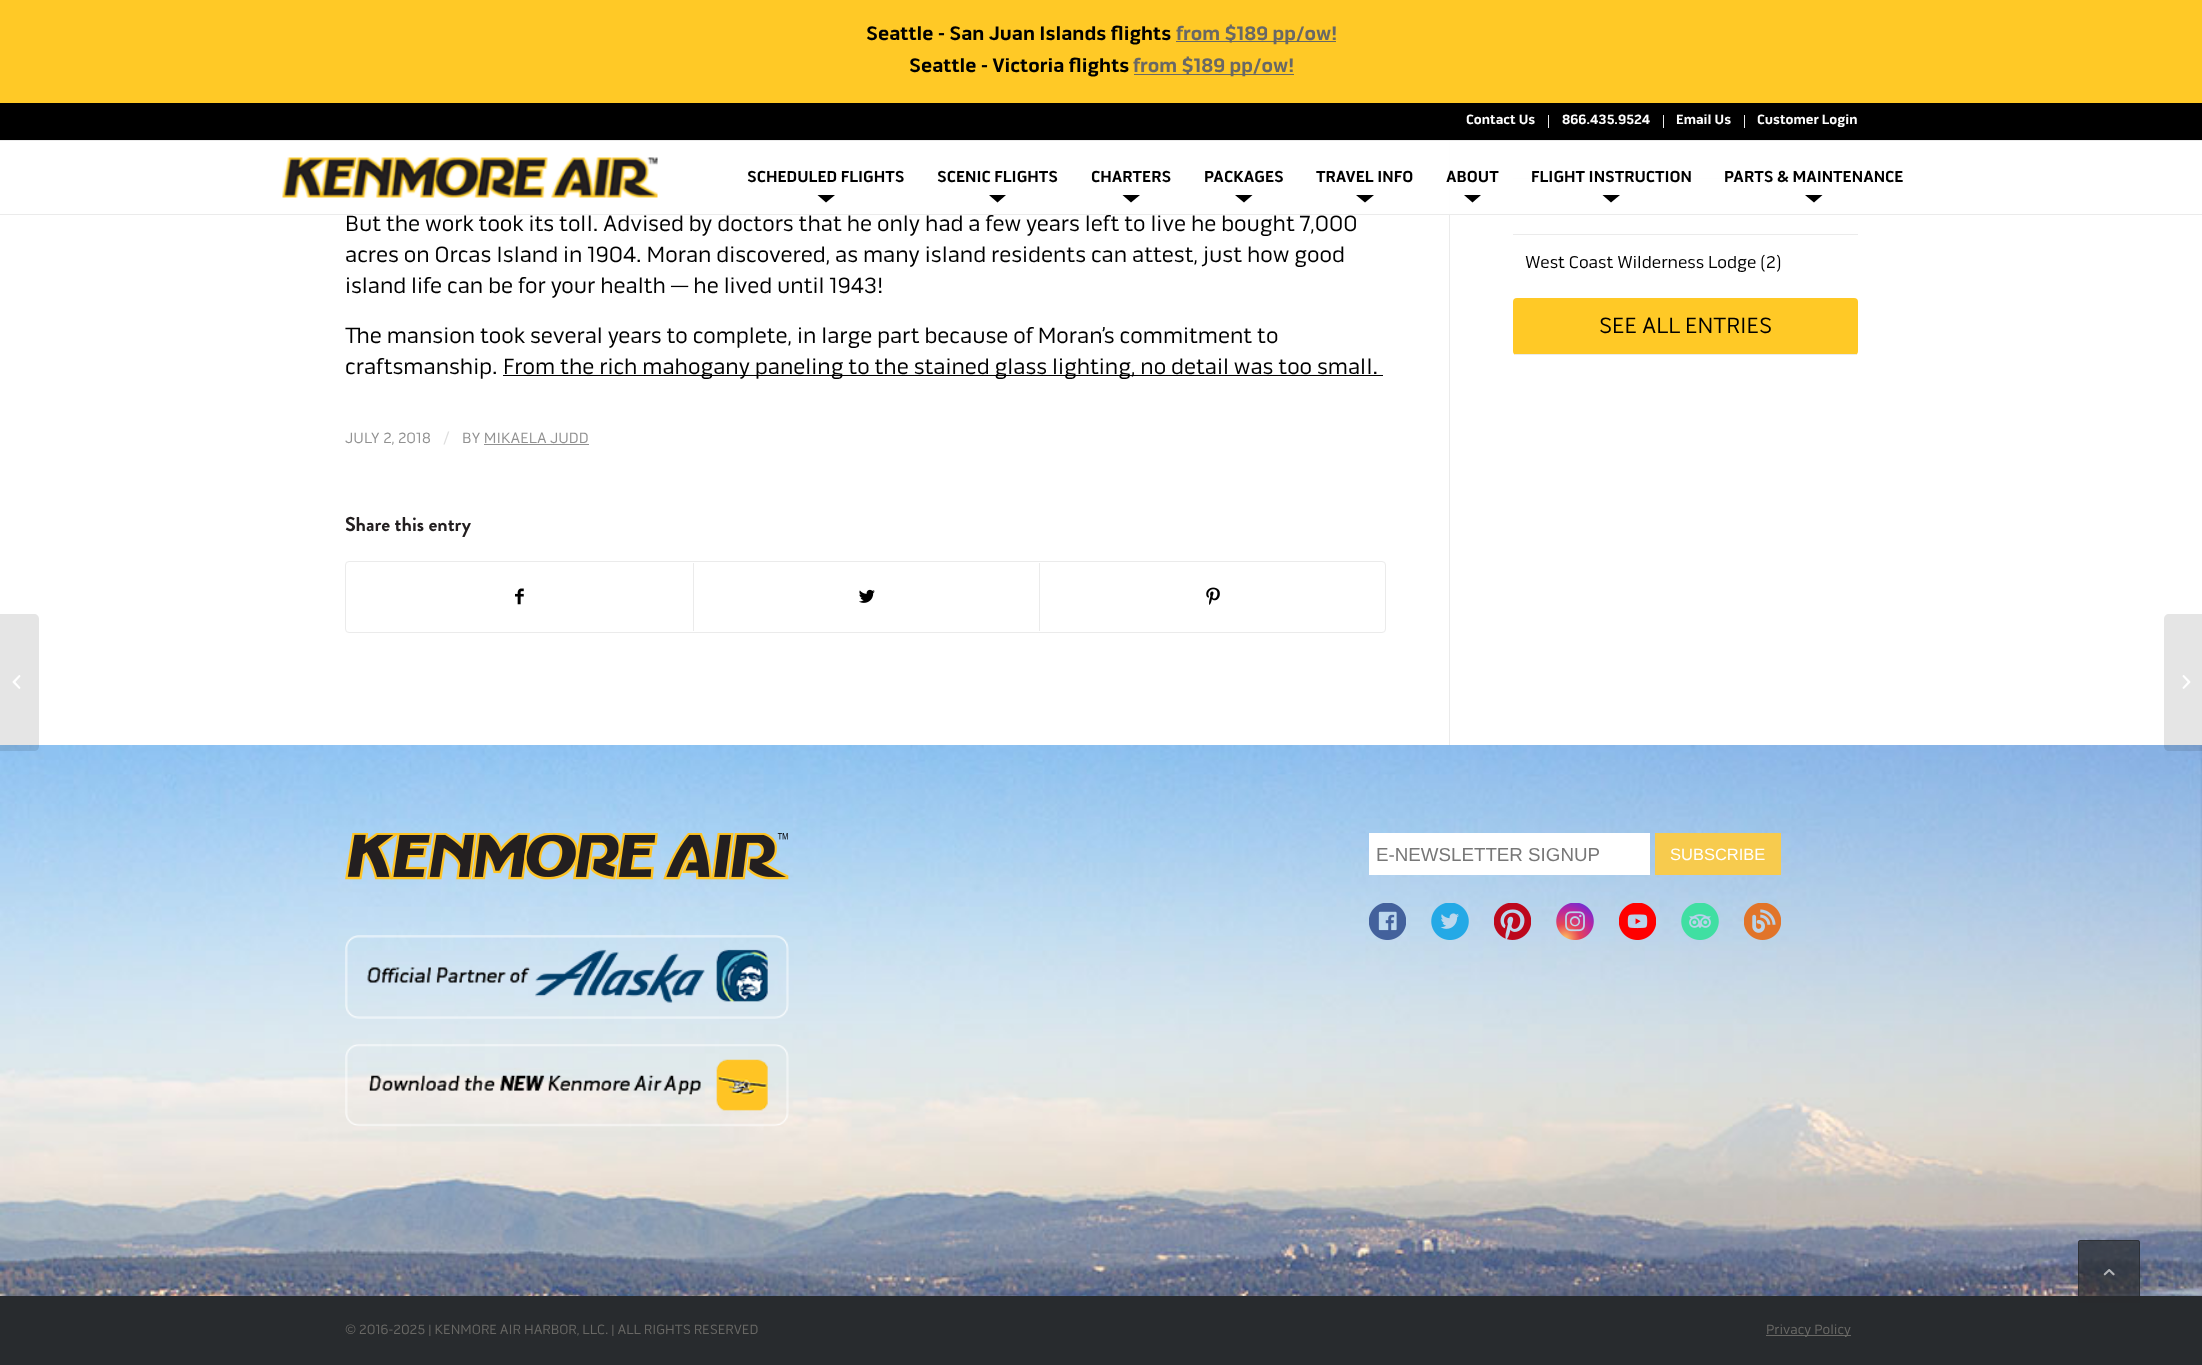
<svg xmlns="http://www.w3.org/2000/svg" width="2202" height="1365">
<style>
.a{font:bold 20px 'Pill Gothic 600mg';fill:#000}
.b{font:bold 20px 'Pill Gothic 600mg';fill:#696865}
.c{font:bold 13.75px 'Pill Gothic 600mg';fill:#fff}
.d{font:bold 16.25px 'Pill Gothic 600mg';fill:#000}
.e{font:22.5px 'Pill Gothic 600mg';fill:#000}
.f{font:15.25px 'Pill Gothic 600mg';fill:#919191}
.g{font:17px 'Pill Gothic 600mg';fill:#dedede}
.h{font:bold 20px Brandon Grotesque;fill:#231f20}
.i{font:17.5px 'Pill Gothic 600mg';fill:#000}
.j{font:18.75px Liberation Sans;fill:#777}
.k{font:16.5px Liberation Sans;fill:#fff}
.l{font:13.75px 'Pill Gothic 600mg';fill:#696865}
</style>
<rect width="100%" height="100%" fill="#fff"/>
<path fill="#ffc926" d="M0 0h2202v103H0z"/>
<path fill="#696865" d="M1176 41h160v1H1176z"/>
<path fill="#696865" d="M1134 74h160v1H1134z"/>
<path fill="#000" d="M0 103h2202v37H0z"/>
<path fill="#ebebeb" d="M0 140h2202v1H0z"/>
<path fill="#ebebeb" d="M1548 115h1v13H1548z"/>
<path fill="#ebebeb" d="M1663 115h1v13H1663z"/>
<path fill="#ebebeb" d="M1744 115h1v13H1744z"/>
<path fill="#ebebeb" d="M1449 141h1v604H1449z"/>
<path fill="#ebebeb" d="M1513 178h345v1H1513z"/>
<path fill="#fffffff2" d="M1449 141h409v73H1449z"/>
<image href="1.png" x="282" y="157" width="376" height="41"/>
<path fill="#000" d="M817.5 195h17.5l-9 7.5z"/>
<path fill="#000" d="M989 195h17l-8.5 7.5z"/>
<path fill="#000" d="M1122.5 195h17.5l-9 7.5z"/>
<path fill="#000" d="M1235 195h17.5l-8.5 7.5z"/>
<path fill="#000" d="M1356 195h18l-9 7.5z"/>
<path fill="#000" d="M1464 195h17l-8.5 7.5z"/>
<path fill="#000" d="M1602.5 195h17.5l-9 7.5z"/>
<path fill="#000" d="M1805 195h17.5l-8.5 7.5z"/>
<image href="6.png" x="0" y="745" width="2202" height="551"/>
<path fill="#0000001a" d="M0 614h34c3 0 5 2 5 5v127c0 3-2 5-5 5h-34z"/>
<image href="2.png" x="12" y="675" width="9" height="14"/>
<path fill="#000" d="M503 375h880v1H503z"/>
<path fill="#919191" d="M484 444h105v1H484z"/>
<rect fill="none" stroke="#ebebeb" x="345.5" y="561.5" width="1040" height="71" rx="3.5"/>
<image href="3.png" x="515" y="588" width="9" height="17"/>
<path fill="#ebebeb" d="M693 563h1v68H693z"/>
<image href="4.png" x="859" y="589" width="16" height="14"/>
<path fill="#ebebeb" d="M1039 563h1v68H1039z"/>
<image href="5.png" x="1206" y="587" width="14" height="18"/>
<path fill="#ebebeb" d="M1513 234h345v1H1513z"/>
<rect fill="#ffc926" x="1513" y="298" width="345" height="57" rx="4"/>
<path fill="#ebebeb" d="M1515 354h341v1H1515z"/>
<image href="7.png" x="345" y="833" width="444" height="47"/>
<image href="8.png" x="345" y="935" width="444" height="84"/>
<image href="9.png" x="345" y="1044" width="444" height="83"/>
<path fill="#fff" d="M1369 833h281v42H1369z"/>
<path fill="#f7cb4e" d="M1655 833h126v42H1655z"/>
<image href="10.png" x="1369" y="903" width="37" height="37"/>
<image href="11.png" x="1431" y="903" width="38" height="37"/>
<image href="12.png" x="1494" y="903" width="37" height="37"/>
<image href="13.png" x="1556" y="903" width="38" height="37"/>
<image href="14.png" x="1619" y="903" width="37" height="37"/>
<image href="15.png" x="1681" y="903" width="38" height="37"/>
<image href="16.png" x="1744" y="903" width="37" height="37"/>
<path fill="#282b2e" d="M0 1296h2202v69H0z"/>
<path fill="#696865" d="M1766 1335h85v1H1766z"/>
<path fill="#0000001a" d="M2169 614h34v137h-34c-3 0-5-2-5-5v-127c0-3 2-5 5-5z"/>
<image href="17.png" x="2182" y="675" width="9" height="14"/>
<rect fill="#282b2eb3" x="2078" y="1240" width="62" height="63" rx="2.5"/>
<rect fill="none" stroke="#282b2eb3" x="2078.5" y="1240.5" width="61" height="62" rx="2"/>
<image href="18.png" x="2103" y="1269" width="12" height="7"/>
<text class="a" x="866" y="40">Seattle - San Juan Islands flights</text>
<text class="b" x="1176" y="40">from $189 pp/ow!</text>
<text class="a" x="909" y="72">Seattle - Victoria flights</text>
<text class="b" x="1133" y="72">from $189 pp/ow!</text>
<text class="c" x="1466" y="124">Contact Us</text>
<text class="c" x="1562" y="124">866.435.9524</text>
<text class="c" x="1676" y="124">Email Us</text>
<text class="c" x="1757" y="124">Customer Login</text>
<text class="d" x="747" y="182">SCHEDULED FLIGHTS</text>
<text class="d" x="937" y="182">SCENIC FLIGHTS</text>
<text class="d" x="1091" y="182">CHARTERS</text>
<text class="d" x="1204" y="182">PACKAGES</text>
<text class="d" x="1316" y="182">TRAVEL INFO</text>
<text class="d" x="1446" y="182">ABOUT</text>
<text class="d" x="1531" y="182">FLIGHT INSTRUCTION</text>
<text class="d" x="1724" y="182">PARTS &amp; MAINTENANCE</text>
<text class="e" x="345" y="231">But the work took its toll. Advised by doctors that he only had a few years left to live he bought 7,000</text>
<path fill="#ebebeb" d="M0 214h2202v1H0z"/>
<text class="e" x="345" y="262">acres on Orcas Island in 1904. Moran discovered, as many island residents can attest, just how good</text>
<text class="e" x="345" y="293">island life can be for your health — he lived until 1943!</text>
<text class="e" x="345" y="343">The mansion took several years to complete, in large part because of Moran’s commitment to</text>
<text class="e" x="345" y="374">craftsmanship.</text>
<text class="e" x="503" y="374">From the rich mahogany paneling to the stained glass lighting, no detail was too small.</text>
<text class="f" x="345" y="443">JULY 2, 2018</text>
<text class="g" x="443" y="443">/</text>
<text class="f" x="462" y="443">BY MIKAELA JUDD</text>
<text class="h" x="345" y="531">Share this entry</text>
<text class="i" x="1525" y="268">West Coast Wilderness Lodge (2)</text>
<text class="e" x="1599" y="333">SEE ALL ENTRIES</text>
<text class="j" x="1376" y="861">E-NEWSLETTER SIGNUP</text>
<text class="k" x="1670" y="860">SUBSCRIBE</text>
<text class="l" x="345" y="1334">© 2016-2025 | KENMORE AIR HARBOR, LLC. | ALL RIGHTS RESERVED</text>
<text class="l" x="1766" y="1334">Privacy Policy</text>
</svg>
